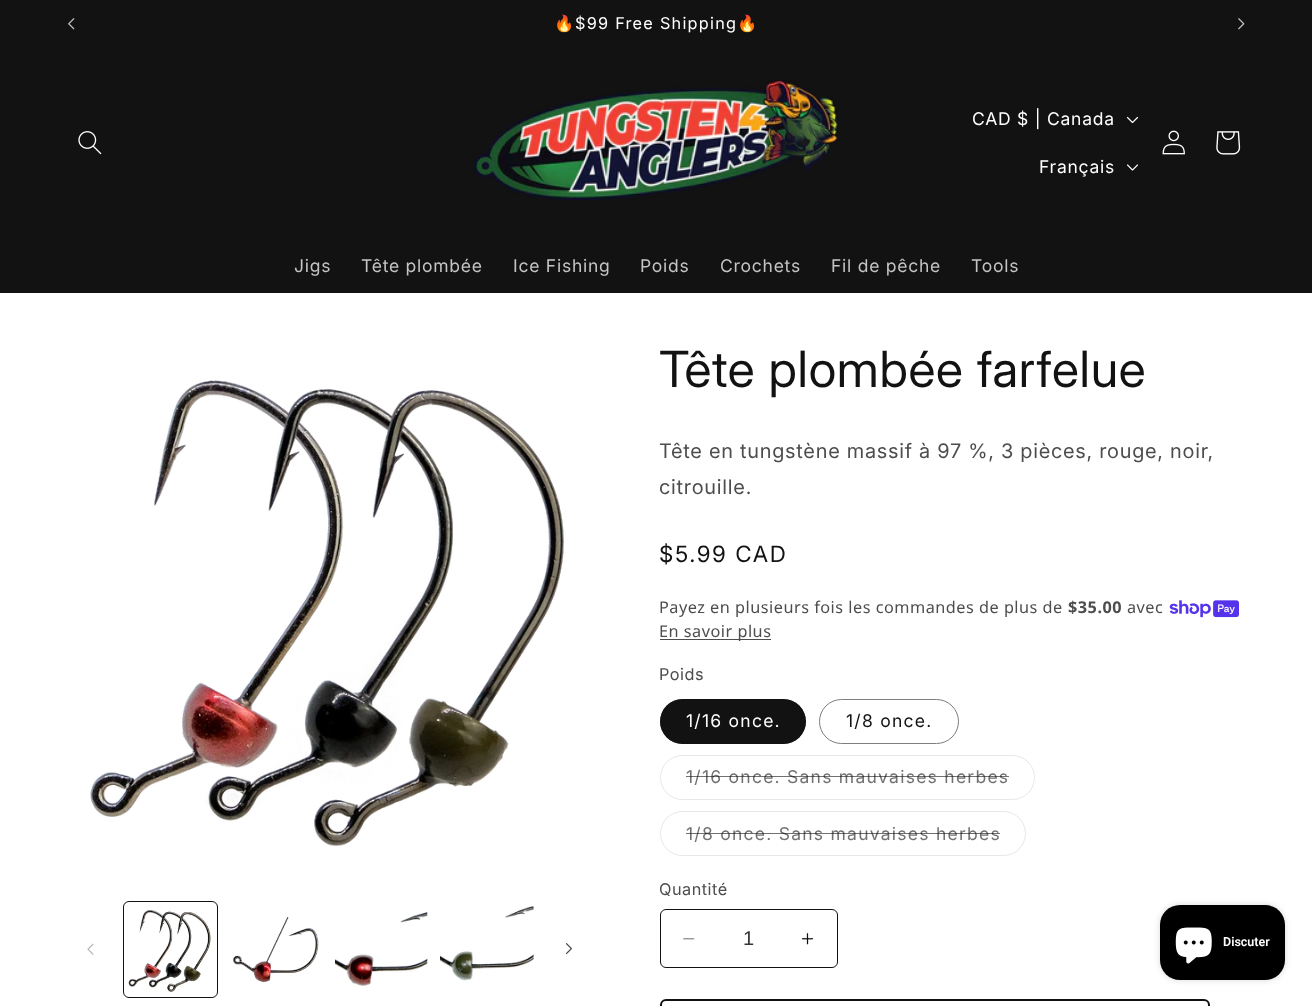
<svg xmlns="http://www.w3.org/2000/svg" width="1312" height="1006">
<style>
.a{font:16.25px Noto Color Emoji;letter-spacing:1.25px;fill:#fff}
.b{font:16.25px 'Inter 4';letter-spacing:1.25px;fill:#fff}
.c{font:17.5px 'Inter 4';letter-spacing:0.75px;fill:#fff}
.d{font:17.5px 'Inter 4';letter-spacing:0.75px;fill:#c4c4c4}
.e{font:50px Inter;letter-spacing:0.75px;fill:#121212}
.f{font:20px 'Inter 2';letter-spacing:0.75px;fill:#4d4d4d}
.g{font:22.5px 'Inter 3';letter-spacing:1.6px;fill:#121212}
.h{font:16.25px Noto Sans;letter-spacing:0.5px;fill:#4d4d4d}
.i{font:bold 16.25px Noto Sans;letter-spacing:0.5px;fill:#4d4d4d}
.j{font:16.25px 'Inter 4';letter-spacing:0.5px;fill:#4d4d4d}
.k{font:17.5px 'Inter 4';letter-spacing:1.25px;fill:#fff}
.l{font:17.5px 'Inter 4';letter-spacing:1.25px;fill:#121212}
.m{font:17.5px 'Inter 4';letter-spacing:1.25px;fill:#717171}
.n{font:20px Liberation Sans;fill:#363636}
.o{font:600 12.5px Roboto;fill:#fff}
</style>
<rect width="100%" height="100%" fill="#fff"/>
<path fill="#121212" d="M0 0h1312v293H0z"/>
<image href="1.png" x="68" y="18" width="7" height="12"/>
<image href="2.png" x="1238" y="18" width="7" height="12"/>
<image href="3.png" x="78" y="131" width="24" height="24"/>
<image href="4.png" x="473" y="80" width="366" height="121"/>
<image href="5.png" x="1126" y="116" width="13" height="8"/>
<image href="6.png" x="1127" y="164" width="11" height="7"/>
<image href="7.png" x="1162" y="130" width="23" height="25"/>
<image href="8.png" x="1216" y="131" width="25" height="24"/>
<image href="9.png" x="90" y="380" width="475" height="467"/>
<image href="10.png" x="87" y="943" width="7" height="12"/>
<rect fill="none" stroke="#121212" x="123.5" y="901.5" width="94" height="96" rx="5.5"/>
<image href="11.png" x="128" y="910" width="83" height="82"/>
<image href="12.png" x="233" y="917" width="86" height="66"/>
<image href="13.png" x="335" y="912" width="93" height="74"/>
<image href="14.png" x="440" y="906" width="94" height="75"/>
<image href="15.png" x="565" y="943" width="7" height="12"/>
<image href="16.png" x="1169" y="600" width="70" height="18"/>
<path fill="#4d4d4d" d="M660 639h111v1H660z"/>
<rect fill="#121212" x="660" y="699" width="146" height="45" rx="22.5"/>
<rect fill="none" stroke="#1212128c" x="660.5" y="699.5" width="145" height="44" rx="22"/>
<rect fill="none" stroke="#7d7d7d" x="819.5" y="699.5" width="139" height="44" rx="22"/>
<rect fill="none" stroke="#e7e7e7" x="660.5" y="755.5" width="374" height="44" rx="22"/>
<rect fill="none" stroke="#e7e7e7" x="660.5" y="811.5" width="365" height="44" rx="22"/>
<image href="17.png" x="683" y="938" width="12" height="2"/>
<image href="18.png" x="801" y="933" width="13" height="12"/>
<rect fill="none" stroke="#121212" x="660.5" y="909.5" width="177" height="58" rx="5.5"/>
<rect fill="none" stroke="#121212" stroke-width="2" x="661" y="1000" width="548" height="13" rx="5"/>
<rect fill="#00000026" filter="blur(3px)" x="1160" y="905" width="125" height="75" rx="20"/>
<rect fill="#000" x="1160" y="905" width="125" height="75" rx="20"/>
<image href="19.png" x="1175" y="927" width="37" height="37"/>
<text class="a" x="554" y="29">🔥</text>
<text class="b" x="575" y="29">$99 Free Shipping</text>
<text class="a" x="737" y="29">🔥</text>
<text class="c" x="972" y="125">CAD $ | Canada</text>
<text class="c" x="1039" y="173">Français</text>
<text class="d" x="294" y="272">Jigs</text>
<text class="d" x="361" y="272">Tête plombée</text>
<text class="d" x="513" y="272">Ice Fishing</text>
<text class="d" x="640" y="272">Poids</text>
<text class="d" x="720" y="272">Crochets</text>
<text class="d" x="831" y="272">Fil de pêche</text>
<text class="d" x="971" y="272">Tools</text>
<text class="e" x="659" y="387">Tête plombée farfelue</text>
<text class="f" x="659" y="458">Tête en tungstène massif à 97 %, 3 pièces, rouge, noir,</text>
<text class="f" x="659" y="494">citrouille.</text>
<text class="g" x="659" y="562">$5.99 CAD</text>
<text class="h" x="659" y="613">Payez en plusieurs fois les commandes de plus de</text>
<text class="i" x="1068" y="613">$35.00</text>
<text class="h" x="1127" y="613">avec</text>
<text class="h" x="659" y="637">En savoir plus</text>
<text class="j" x="659" y="680">Poids</text>
<text class="k" x="686" y="727">1/16 once.</text>
<text class="l" x="846" y="727">1/8 once.</text>
<text class="m" x="686" y="783">1/16 once. Sans mauvaises herbes</text>
<path fill="#12121299" d="M686 776h323v1H686z"/>
<text class="m" x="686" y="840">1/8 once. Sans mauvaises herbes</text>
<path fill="#12121299" d="M686 833h314v1H686z"/>
<text class="j" x="659" y="895">Quantité</text>
<text class="n" x="743" y="945">1</text>
<text class="o" x="1223" y="946">Discuter</text>
</svg>
